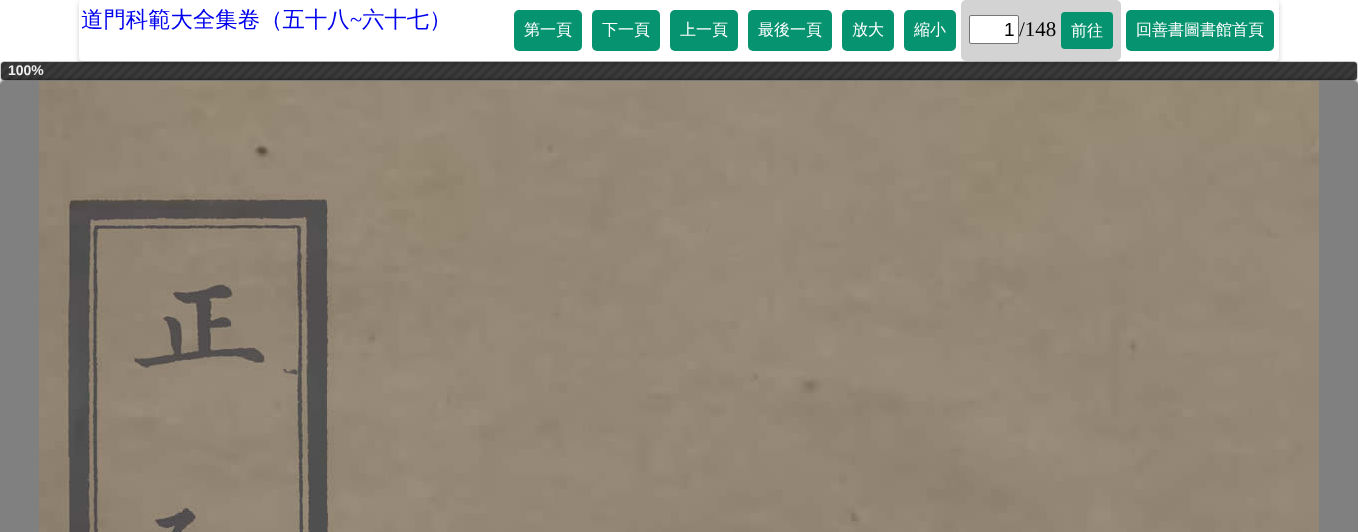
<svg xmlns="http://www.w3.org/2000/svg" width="1358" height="532">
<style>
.a{font:500 22.4px WenQuanYi Zen Hei;fill:#00e}
.b{font:22.4px Liberation Serif;fill:#00e}
.c{font:500 16px WenQuanYi Zen Hei;fill:#fff}
.d{font:19px Liberation Sans;fill:#000}
.e{font:21px Liberation Serif;fill:#000}
.f{font:bold 14px Liberation Sans;fill:#eee}
</style>
<rect width="100%" height="100%" fill="#fff"/>
<rect fill="none" stroke="#ccc" x="0.5" y="61.5" width="1357" height="19" rx="3.5"/>
<image href="1.png" x="1" y="62" width="1356" height="18"/>
<rect fill="#00000033" filter="blur(2.5px)" x="79" y="2" width="1200" height="61" rx="4"/>
<rect fill="#fff" x="79" width="1200" height="61" rx="4"/>
<rect fill="#069370" x="514" y="10" width="68" height="41" rx="5"/>
<rect fill="#069370" x="592" y="10" width="68" height="41" rx="5"/>
<rect fill="#069370" x="670" y="10" width="68" height="41" rx="5"/>
<rect fill="#069370" x="748" y="10" width="84" height="41" rx="5"/>
<rect fill="#069370" x="842" y="10" width="52" height="41" rx="5"/>
<rect fill="#069370" x="904" y="10" width="52" height="41" rx="5"/>
<rect fill="#d3d3d3" x="961" width="160" height="61" rx="5"/>
<rect fill="#fff" stroke="#767676" x="969.5" y="15.5" width="49" height="28" rx="1.5"/>
<rect fill="#069370" x="1061" y="12" width="52" height="37" rx="4"/>
<rect fill="#069370" x="1126" y="10" width="148" height="41" rx="5"/>
<rect fill="#000" filter="blur(2px)" y="81" width="1358" height="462" rx="5"/>
<rect fill="#808080" y="81" width="1358" height="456" rx="5"/>
<image href="2.png" x="39" y="81" width="1280" height="451"/>
<text class="a" x="81" y="27">道門科範大全集卷（五十八</text>
<text class="b" x="350" y="27">~</text>
<text class="a" x="362" y="27">六十七）</text>
<text class="c" x="524" y="35">第一頁</text>
<text class="c" x="602" y="35">下一頁</text>
<text class="c" x="680" y="35">上一頁</text>
<text class="c" x="758" y="35">最後一頁</text>
<text class="c" x="852" y="35">放大</text>
<text class="c" x="914" y="35">縮小</text>
<text class="d" x="1004" y="36">1</text>
<text class="e" x="1019" y="36">/148</text>
<text class="c" x="1071" y="36">前往</text>
<text class="c" x="1136" y="35">回善書圖書館首頁</text>
<text class="f" x="8" y="75">100%</text>
</svg>
